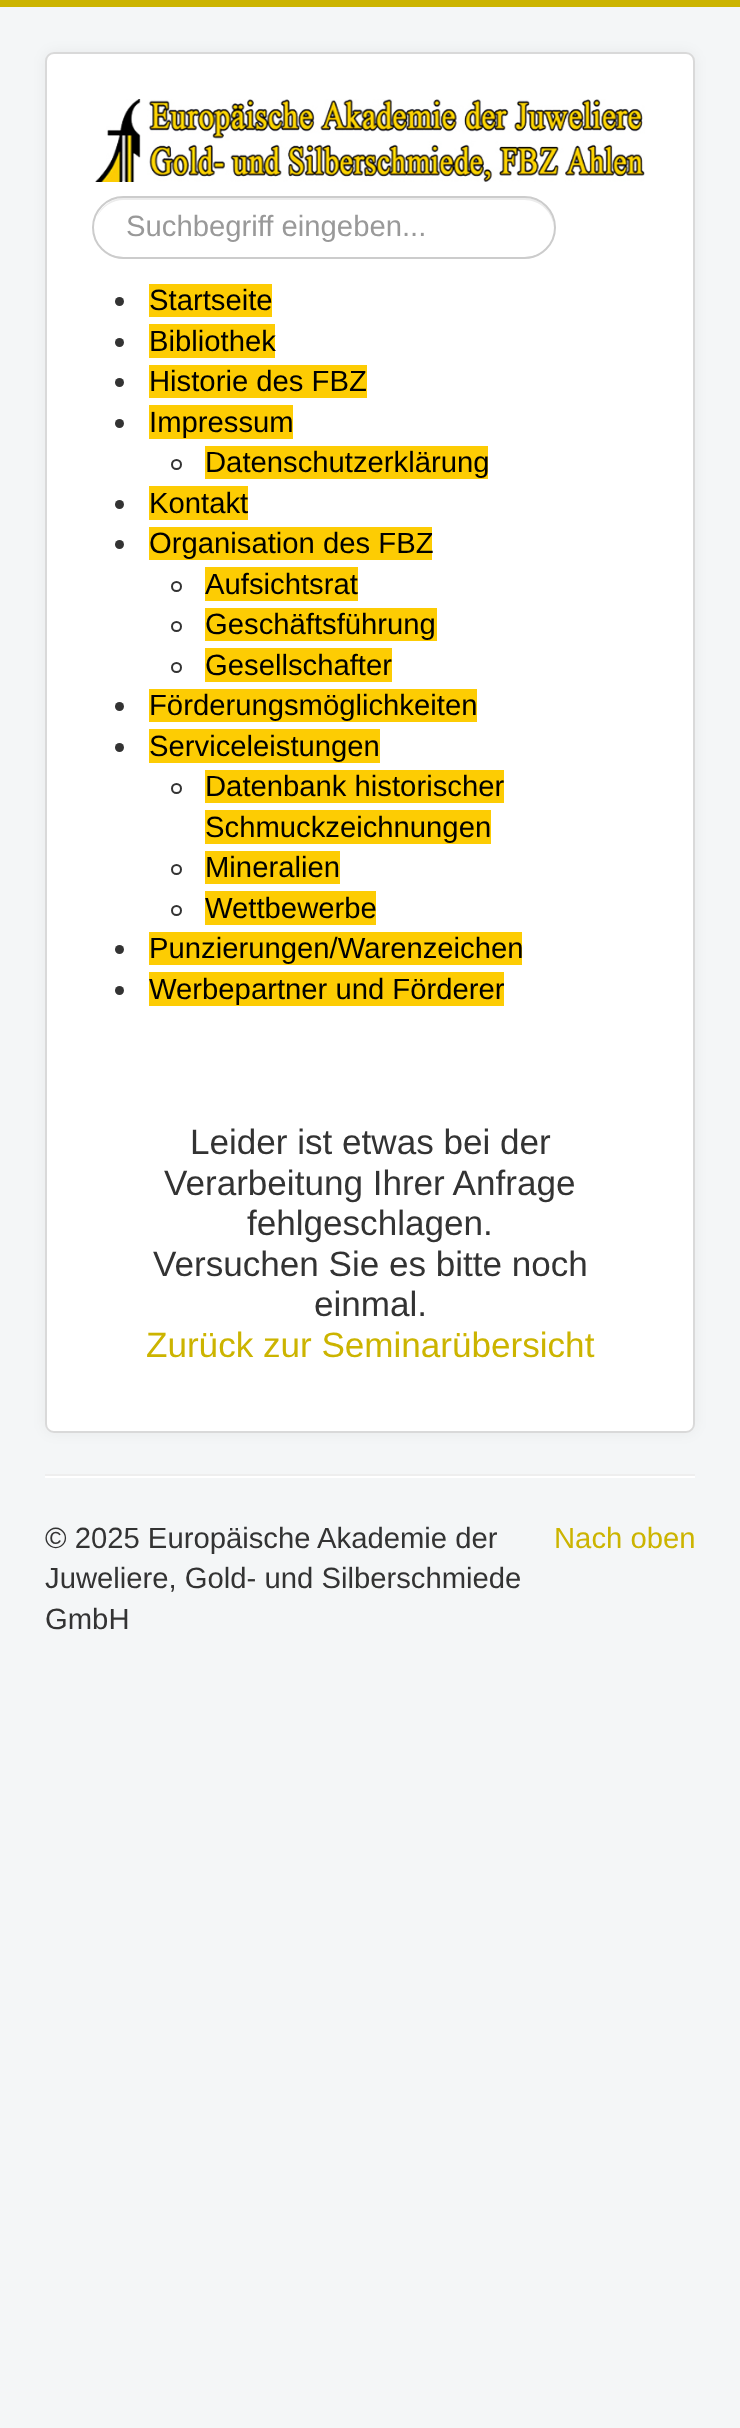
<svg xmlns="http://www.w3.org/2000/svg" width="740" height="2428">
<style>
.a{font:29.25px Liberation Sans;fill:#999}
.b{font:29.25px Liberation Sans;fill:#000}
.c{font:35.1px Liberation Sans;fill:#333}
.d{font:35.1px Liberation Sans;fill:#ccb400}
.e{font:29.25px Liberation Sans;fill:#333}
.f{font:29.25px Liberation Sans;fill:#ccb400}
</style>
<rect width="100%" height="100%" fill="#f4f6f7"/>
<path fill="#ccb400" d="M0 0h740v7H0z"/>
<rect fill="#0000000d" filter="blur(7px)" x="45" y="52" width="650" height="1381" rx="9"/>
<rect fill="#fff" x="45" y="52" width="650" height="1381" rx="9"/>
<rect fill="none" stroke="#00000026" stroke-width="2" x="46" y="53" width="648" height="1379" rx="8"/>
<image href="1.png" x="95" y="99" width="550" height="83"/>
<path fill="#ececec" d="M124 200h400c16 0 29 12 30 29v-1c0-17-13-30-30-30h-400c-12 0-23 8-27 19c5-10 15-17 27-17z"/>
<rect fill="none" stroke="#ccc" stroke-width="2" x="93" y="197" width="462" height="61" rx="30.5"/>
<circle fill="#333" cx="119.5" cy="301.5" r="4.5"/>
<path fill="#fdcc03" d="M149 284h123v33H149z"/>
<circle fill="#333" cx="119.5" cy="342.5" r="4.5"/>
<path fill="#fdcc03" d="M149 324h126v34H149z"/>
<circle fill="#333" cx="119.5" cy="382.5" r="4.5"/>
<path fill="#fdcc03" d="M149 365h218v33H149z"/>
<circle fill="#333" cx="119.5" cy="423.5" r="4.5"/>
<path fill="#fdcc03" d="M149 405h144v34H149z"/>
<circle fill="none" stroke="#333" stroke-width="2" cx="176.5" cy="464.5" r="4.5"/>
<path fill="#fdcc03" d="M205 446h283v33H205z"/>
<circle fill="#333" cx="119.5" cy="504.5" r="4.5"/>
<path fill="#fdcc03" d="M149 486h99v34H149z"/>
<circle fill="#333" cx="119.5" cy="544.5" r="4.5"/>
<path fill="#fdcc03" d="M149 527h283v33H149z"/>
<circle fill="none" stroke="#333" stroke-width="2" cx="176.5" cy="586.5" r="4.5"/>
<path fill="#fdcc03" d="M205 567h153v34H205z"/>
<circle fill="none" stroke="#333" stroke-width="2" cx="176.5" cy="626.5" r="4.5"/>
<path fill="#fdcc03" d="M205 608h232v33H205z"/>
<circle fill="none" stroke="#333" stroke-width="2" cx="176.5" cy="667.5" r="4.5"/>
<path fill="#fdcc03" d="M205 648h187v34H205z"/>
<circle fill="#333" cx="119.5" cy="706.5" r="4.5"/>
<path fill="#fdcc03" d="M149 689h328v33H149z"/>
<circle fill="#333" cx="119.5" cy="747.5" r="4.5"/>
<path fill="#fdcc03" d="M149 729h231v34H149z"/>
<circle fill="none" stroke="#333" stroke-width="2" cx="176.5" cy="788.5" r="4.5"/>
<path fill="#fdcc03" d="M205 770h299v33H205z"/>
<path fill="#fdcc03" d="M205 810h286v34H205z"/>
<circle fill="none" stroke="#333" stroke-width="2" cx="176.5" cy="869.5" r="4.5"/>
<path fill="#fdcc03" d="M205 851h135v33H205z"/>
<circle fill="none" stroke="#333" stroke-width="2" cx="176.5" cy="910.5" r="4.5"/>
<path fill="#fdcc03" d="M205 891h171v34H205z"/>
<circle fill="#333" cx="119.5" cy="949.5" r="4.5"/>
<path fill="#fdcc03" d="M149 932h373v33H149z"/>
<circle fill="#333" cx="119.5" cy="990.5" r="4.5"/>
<path fill="#fdcc03" d="M149 972h355v34H149z"/>
<path fill="#eee" d="M45 1474h650v2H45z"/>
<path fill="#fff" d="M45 1476h650v2H45z"/>
<text class="a" x="126" y="236">Suchbegriff eingeben...</text>
<text class="b" x="149" y="310">Startseite</text>
<text class="b" x="149" y="351">Bibliothek</text>
<text class="b" x="149" y="391">Historie des FBZ</text>
<text class="b" x="149" y="432">Impressum</text>
<text class="b" x="205" y="472">Datenschutzerklärung</text>
<text class="b" x="149" y="513">Kontakt</text>
<text class="b" x="149" y="553">Organisation des FBZ</text>
<text class="b" x="205" y="594">Aufsichtsrat</text>
<text class="b" x="205" y="634">Geschäftsführung</text>
<text class="b" x="205" y="675">Gesellschafter</text>
<text class="b" x="149" y="715">Förderungsmöglichkeiten</text>
<text class="b" x="149" y="756">Serviceleistungen</text>
<text class="b" x="205" y="796">Datenbank historischer</text>
<text class="b" x="205" y="837">Schmuckzeichnungen</text>
<text class="b" x="205" y="877">Mineralien</text>
<text class="b" x="205" y="918">Wettbewerbe</text>
<text class="b" x="149" y="958">Punzierungen/Warenzeichen</text>
<text class="b" x="149" y="999">Werbepartner und Förderer</text>
<text class="c" x="190" y="1154">Leider ist etwas bei der</text>
<text class="c" x="164" y="1195">Verarbeitung Ihrer Anfrage</text>
<text class="c" x="247" y="1235">fehlgeschlagen.</text>
<text class="c" x="153" y="1276">Versuchen Sie es bitte noch</text>
<text class="c" x="314" y="1316">einmal.</text>
<text class="d" x="146" y="1357">Zurück zur Seminarübersicht</text>
<text class="e" x="45" y="1548">© 2025 Europäische Akademie der</text>
<text class="e" x="45" y="1588">Juweliere, Gold- und Silberschmiede</text>
<text class="e" x="45" y="1629">GmbH</text>
<text class="f" x="554" y="1548">Nach oben</text>
</svg>
